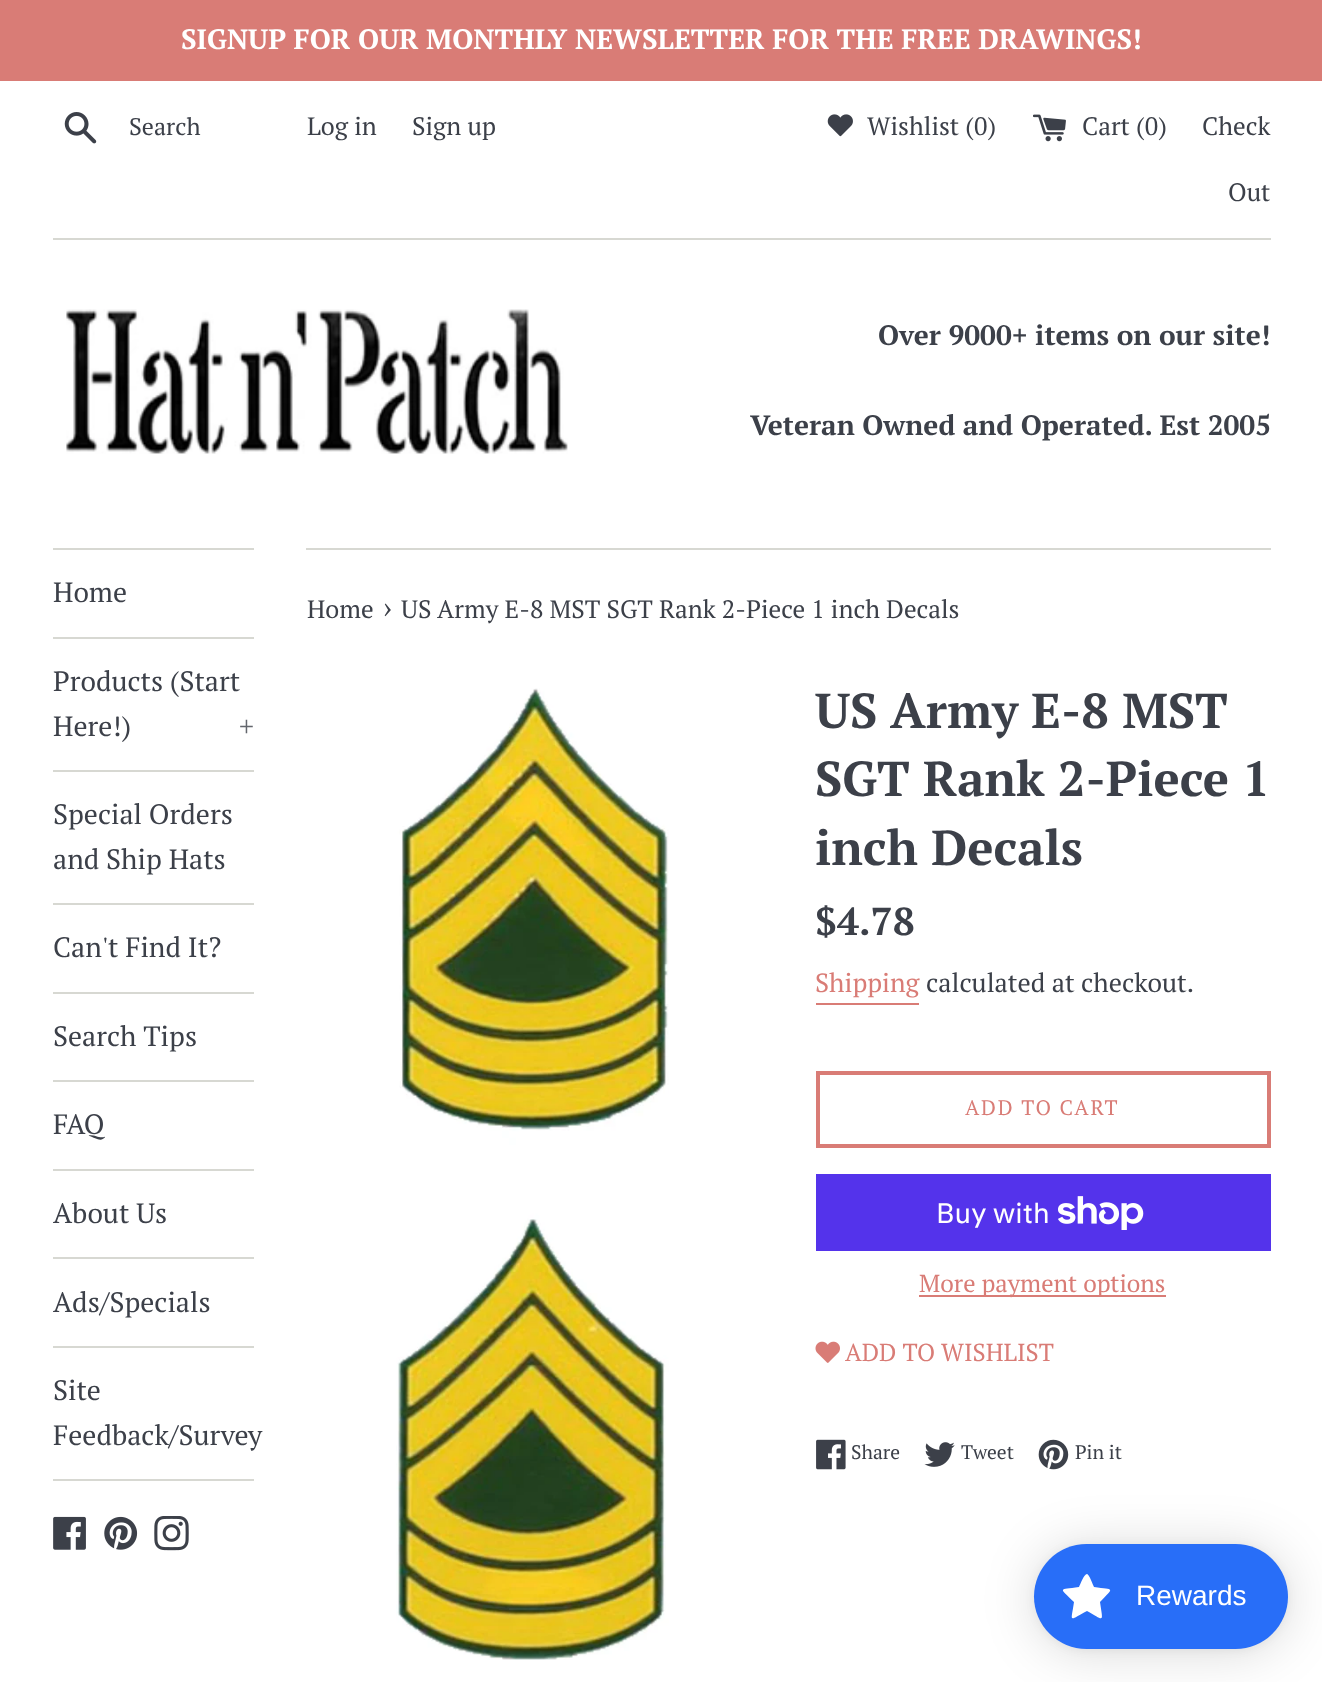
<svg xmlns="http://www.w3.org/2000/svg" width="1322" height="1682">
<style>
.a{font:bold 28px PT Serif;fill:#fff}
.b{font:24px PT Serif;fill:#3c4049}
.c{font:25.2px PT Serif;fill:#3c4049}
.d{font:bold 28px PT Serif;fill:#3c4049}
.e{font:28px PT Serif;fill:#3c4049}
.f{font:28px PT Serif;fill:#63666d}
.g{font:31px PT Serif;fill:#3c4049}
.h{font:bold 49px PT Serif;fill:#3c4049}
.i{font:bold 39px PT Serif;fill:#3c4049}
.j{font:26.25px PT Serif;fill:#d97c76}
.k{font:26.25px PT Serif;fill:#3c4049}
.l{font:21px PT Serif;letter-spacing:1.75px;fill:#d97c76}
.m{font:28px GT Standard;fill:#fff}
.n{font:24.5px PT Serif;fill:#d97c76}
.o{font:19.5px PT Serif;fill:#3c4049}
.p{font:28px Liberation Sans;fill:#fff}
</style>
<rect width="100%" height="100%" fill="#fff"/>
<path fill="#d97c76" d="M0 0h1322v81H0z"/>
<image href="1.png" x="64" y="112" width="33" height="32"/>
<image href="2.png" x="827" y="114" width="26" height="23"/>
<image href="3.png" x="1033" y="114" width="33" height="28"/>
<path fill="#d7d8d2" d="M53 238h1218v2H53z"/>
<image href="4.png" x="66" y="309" width="502" height="145"/>
<path fill="#d7d8d2" d="M53 548h201v2H53z"/>
<path fill="#d7d8d2" d="M53 637h201v2H53z"/>
<path fill="#d7d8d2" d="M53 770h201v2H53z"/>
<path fill="#d7d8d2" d="M53 903h201v2H53z"/>
<path fill="#d7d8d2" d="M53 992h201v2H53z"/>
<path fill="#d7d8d2" d="M53 1080h201v2H53z"/>
<path fill="#d7d8d2" d="M53 1169h201v2H53z"/>
<path fill="#d7d8d2" d="M53 1257h201v2H53z"/>
<path fill="#d7d8d2" d="M53 1346h201v2H53z"/>
<path fill="#d7d8d2" d="M53 1479h201v2H53z"/>
<image href="5.png" x="53" y="1516" width="33" height="34"/>
<image href="6.png" x="104" y="1516" width="34" height="34"/>
<image href="7.png" x="154" y="1516" width="35" height="35"/>
<path fill="#d7d8d2" d="M306 548h965v2H306z"/>
<image href="8.png" x="396" y="688" width="273" height="972"/>
<path fill="#d97c76" d="M816 1003h103v2H816z"/>
<path fill="none" stroke="#d97c76" stroke-width="4" d="M818 1073h451v73H818z"/>
<path fill="#5433eb" d="M816 1174h455v77H816z"/>
<image href="9.png" x="1058" y="1196" width="86" height="34"/>
<path fill="#d97c76" d="M919 1295h247v2H919z"/>
<image href="10.png" x="815" y="1341" width="25" height="22"/>
<image href="11.png" x="816" y="1439" width="30" height="31"/>
<image href="12.png" x="924" y="1442" width="31" height="25"/>
<image href="13.png" x="1038" y="1439" width="31" height="31"/>
<rect fill="#00000026" filter="blur(26px)" x="1034" y="1547" width="254" height="105" rx="52.5"/>
<rect fill="#0000000d" filter="blur(5px)" x="1034" y="1545" width="254" height="105" rx="52.5"/>
<rect fill="#286ef8" x="1034" y="1544" width="254" height="105" rx="52.5"/>
<path fill="#fff" d="M1087 1574c-3 0-7 11-8 13c-21 3-20 0-5 15c-3 21-6 19 13 9c18 10 16 12 13-9c14-15 15-12-6-15c-1-2-5-13-7-13z"/>
<text class="a" x="181" y="49">SIGNUP FOR OUR MONTHLY NEWSLETTER FOR THE FREE DRAWINGS!</text>
<text class="b" x="129" y="135">Search</text>
<text class="c" x="307" y="135">Log in</text>
<text class="c" x="412" y="135">Sign up</text>
<text class="c" x="867" y="135">Wishlist (0)</text>
<text class="c" x="1082" y="135">Cart (0)</text>
<text class="c" x="1202" y="135">Check</text>
<text class="c" x="1228" y="201">Out</text>
<text class="d" x="878" y="345">Over 9000+ items on our site!</text>
<text class="d" x="750" y="435">Veteran Owned and Operated. Est 2005</text>
<text class="e" x="53" y="602">Home</text>
<text class="e" x="53" y="691">Products (Start</text>
<text class="e" x="53" y="736">Here!)</text>
<text class="f" x="239" y="736">+</text>
<text class="e" x="53" y="824">Special Orders</text>
<text class="e" x="53" y="869">and Ship Hats</text>
<text class="e" x="53" y="957">Can't Find It?</text>
<text class="e" x="53" y="1046">Search Tips</text>
<text class="e" x="53" y="1134">FAQ</text>
<text class="e" x="53" y="1223">About Us</text>
<text class="e" x="53" y="1312">Ads/Specials</text>
<text class="e" x="53" y="1400">Site</text>
<text class="e" x="53" y="1445">Feedback/Survey</text>
<text class="c" x="307" y="618">Home</text>
<text class="g" x="383" y="618">›</text>
<text class="c" x="401" y="618">US Army E-8 MST SGT Rank 2-Piece 1 inch Decals</text>
<text class="h" x="815" y="728">US Army E-8 MST</text>
<text class="h" x="815" y="796">SGT Rank 2-Piece 1</text>
<text class="h" x="815" y="865">inch Decals</text>
<text class="i" x="815" y="935">$4.78</text>
<text class="j" x="815" y="992">Shipping</text>
<text class="k" x="926" y="992">calculated at checkout.</text>
<text class="l" x="965" y="1115">ADD TO CART</text>
<text class="m" x="936" y="1223">Buy with</text>
<text class="n" x="919" y="1292">More payment options</text>
<text class="n" x="845" y="1361">ADD TO WISHLIST</text>
<text class="o" x="851" y="1459">Share</text>
<text class="o" x="961" y="1459">Tweet</text>
<text class="o" x="1075" y="1459">Pin it</text>
<text class="p" x="1136" y="1605">Rewards</text>
</svg>
